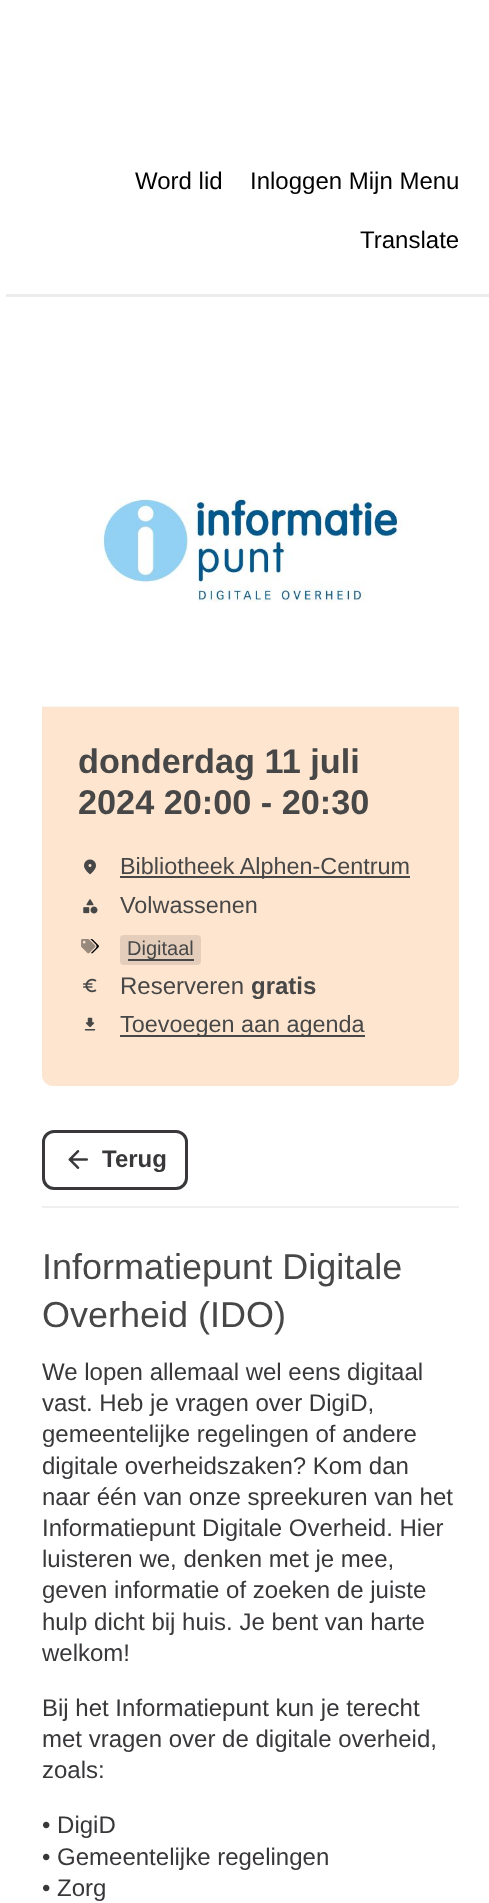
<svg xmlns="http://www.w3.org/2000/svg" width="489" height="1903">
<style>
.a{font:24px Liberation Sans;fill:#000}
.b{font:bold 34.25px Liberation Sans;fill:#474747}
.c{font:23.4px Liberation Sans;fill:#474747}
.d{font:20px Liberation Sans;fill:#474747}
.e{font:24px Liberation Sans;fill:#474747}
.f{font:bold 24px Liberation Sans;fill:#474747}
.g{font:bold 24px Liberation Sans;fill:#39373a}
.h{font:36px Liberation Sans;fill:#474747}
.i{font:24px Liberation Sans;fill:#39373a}
</style>
<rect width="100%" height="100%" fill="#fff"/>
<path fill="#ededed" d="M6 294h483v3H6z"/>
<rect fill="#fde5d0" x="42" y="393" width="417" height="693" rx="11"/>
<path fill="#ededed" d="M42 706h417v1H42z"/>
<image href="1.png" x="42" y="393" width="417" height="314"/>
<image href="2.png" x="84" y="859" width="12" height="16"/>
<path fill="#474747" d="M120 876h290v2H120z"/>
<image href="3.png" x="83" y="899" width="15" height="15"/>
<image href="4.png" x="81" y="939" width="18" height="15"/>
<rect fill="#e4cebb" x="120" y="935" width="81" height="30" rx="4"/>
<path fill="#474747" d="M128 959h66v2H128z"/>
<image href="5.png" x="83" y="978" width="14" height="15"/>
<image href="6.png" x="84" y="1017" width="12" height="14"/>
<path fill="#474747" d="M120 1035h245v2H120z"/>
<rect fill="none" stroke="#39373a" stroke-width="3" x="43.5" y="1131.5" width="143" height="57" rx="10.5"/>
<image href="7.png" x="68" y="1150" width="20" height="19"/>
<path fill="#efefef" d="M42 1206h417v2H42z"/>
<text class="a" x="135" y="189">Word lid</text>
<text class="a" x="250" y="189">Inloggen Mijn Menu</text>
<text class="a" x="360" y="248">Translate</text>
<text class="b" x="78" y="773">donderdag 11 juli</text>
<text class="b" x="78" y="814">2024 20:00 - 20:30</text>
<text class="c" x="120" y="874">Bibliotheek Alphen-Centrum</text>
<text class="c" x="120" y="913">Volwassenen</text>
<text class="d" x="127" y="955">Digitaal</text>
<text class="e" x="120" y="994">Reserveren</text>
<text class="f" x="251" y="994">gratis</text>
<text class="c" x="120" y="1032">Toevoegen aan agenda</text>
<text class="g" x="102" y="1167">Terug</text>
<text class="h" x="42" y="1279">Informatiepunt Digitale</text>
<text class="h" x="42" y="1327">Overheid (IDO)</text>
<text class="i" x="42" y="1380">We lopen allemaal wel eens digitaal</text>
<text class="i" x="42" y="1411">vast. Heb je vragen over DigiD,</text>
<text class="i" x="42" y="1442">gemeentelijke regelingen of andere</text>
<text class="i" x="42" y="1474">digitale overheidszaken? Kom dan</text>
<text class="i" x="42" y="1505">naar één van onze spreekuren van het</text>
<text class="i" x="42" y="1536">Informatiepunt Digitale Overheid. Hier</text>
<text class="i" x="42" y="1567">luisteren we, denken met je mee,</text>
<text class="i" x="42" y="1598">geven informatie of zoeken de juiste</text>
<text class="i" x="42" y="1630">hulp dicht bij huis. Je bent van harte</text>
<text class="i" x="42" y="1661">welkom!</text>
<text class="i" x="42" y="1716">Bij het Informatiepunt kun je terecht</text>
<text class="i" x="42" y="1747">met vragen over de digitale overheid,</text>
<text class="i" x="42" y="1778">zoals:</text>
<text class="i" x="42" y="1833">• DigiD</text>
<text class="i" x="42" y="1865">• Gemeentelijke regelingen</text>
<text class="i" x="42" y="1896">• Zorg</text>
</svg>
